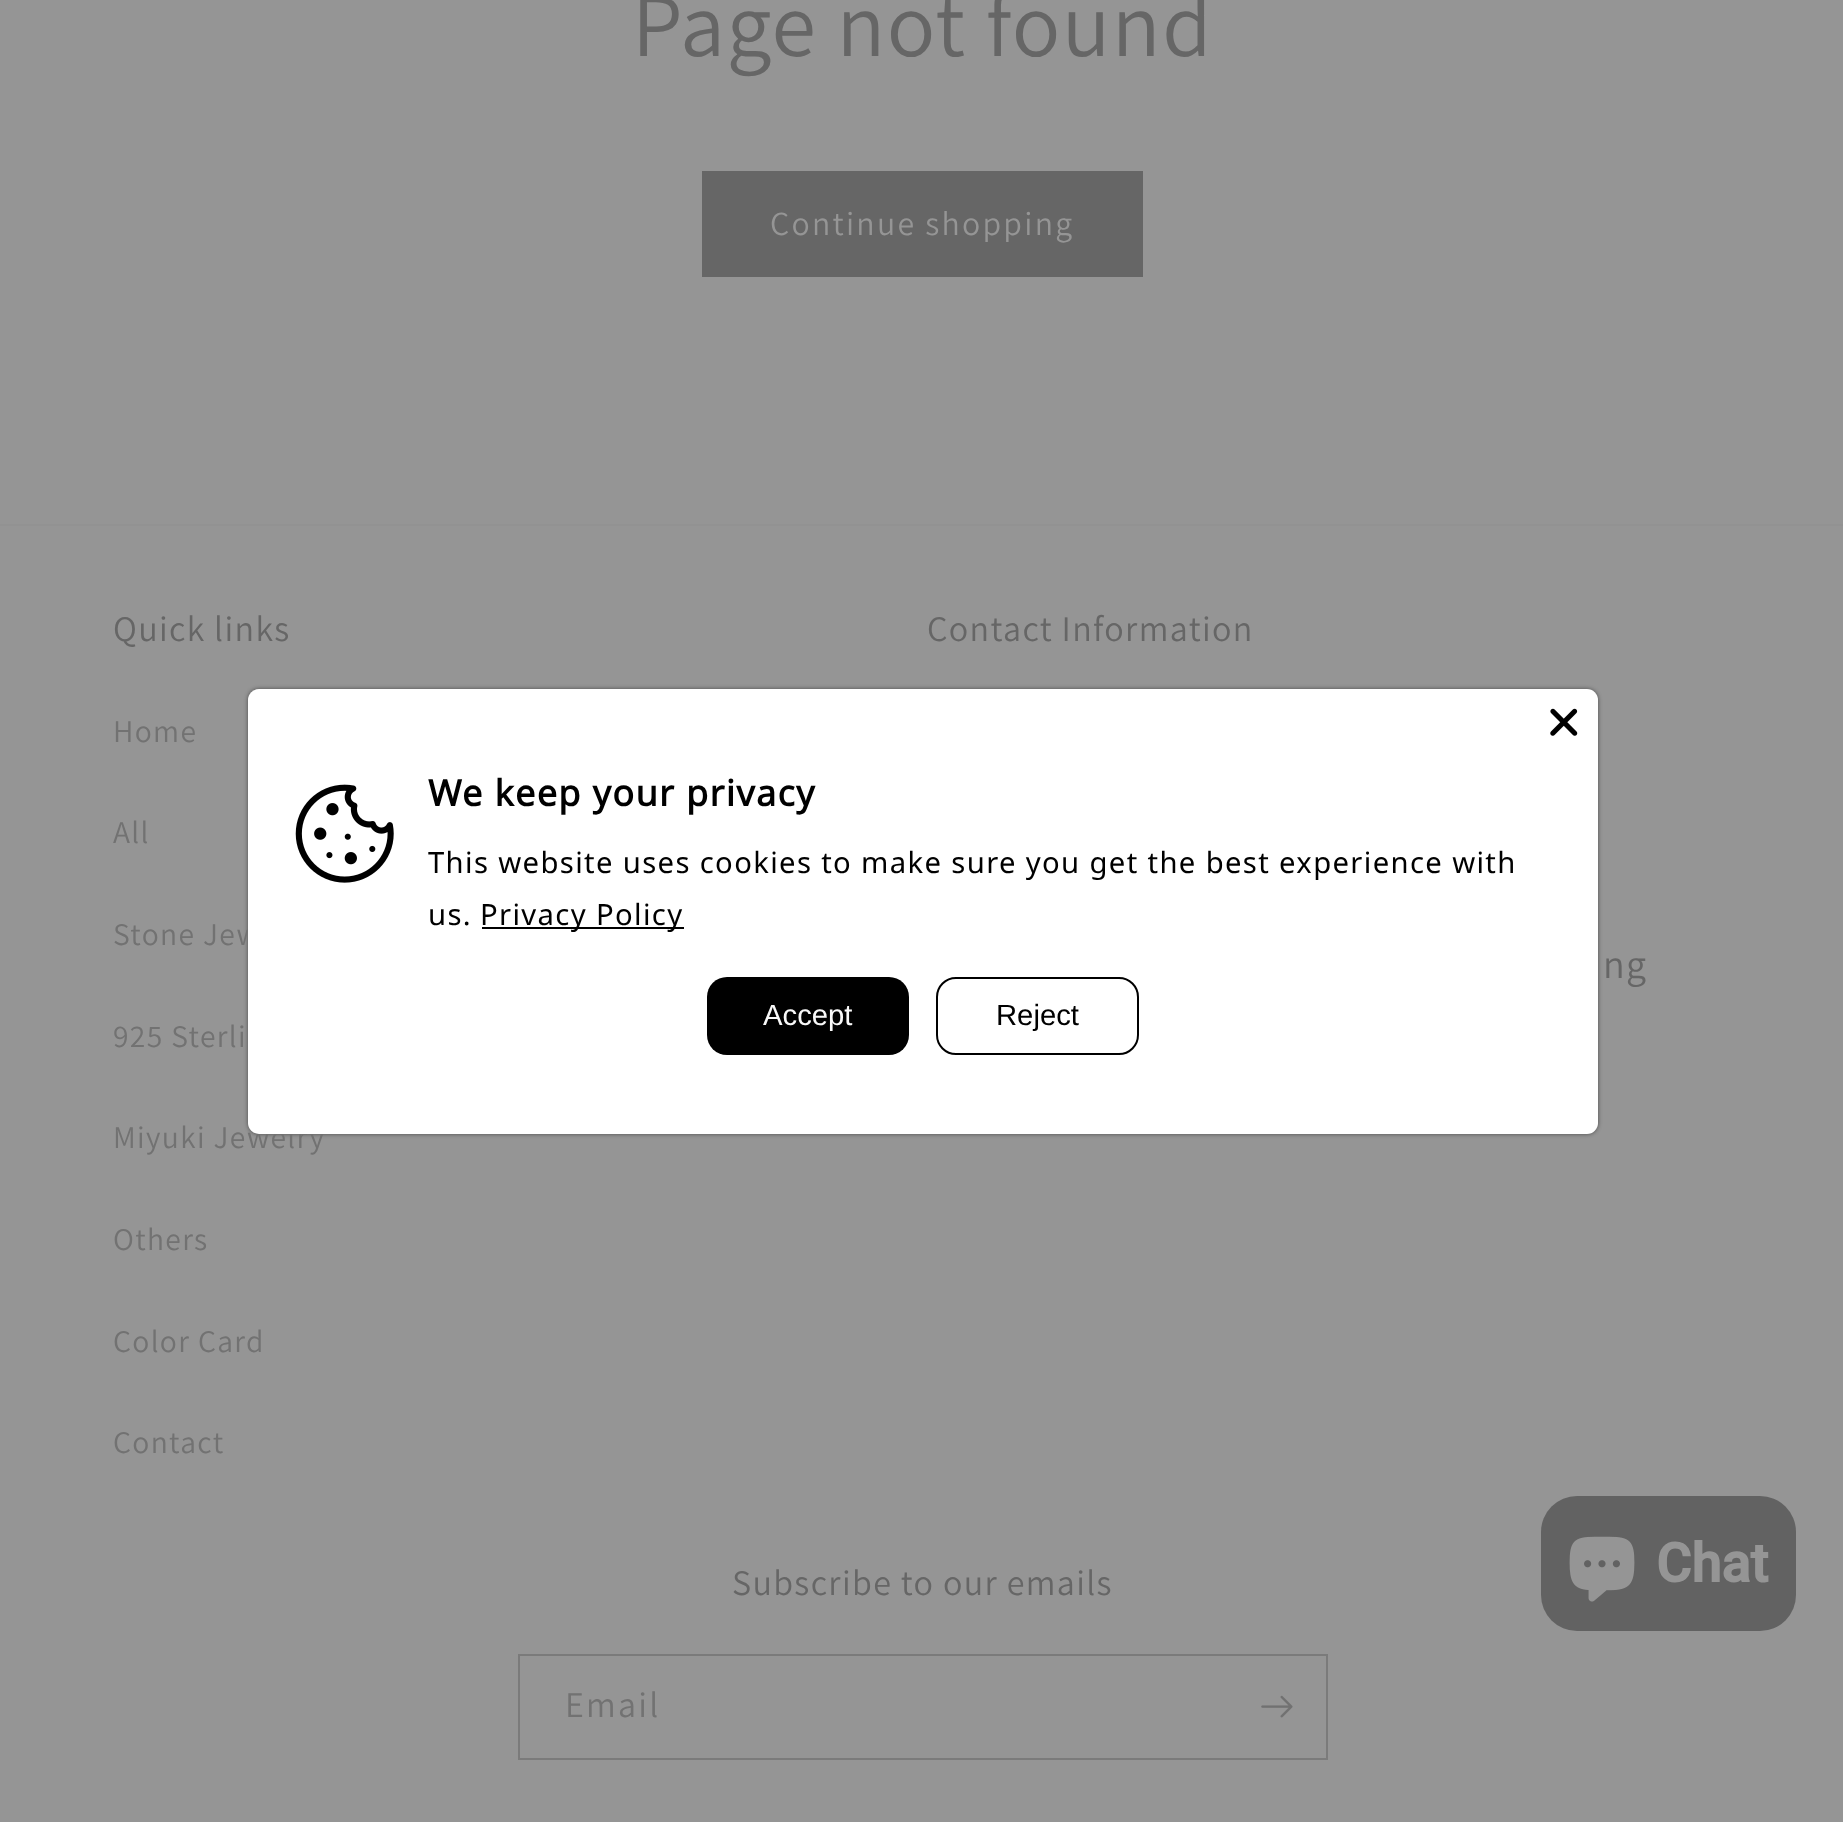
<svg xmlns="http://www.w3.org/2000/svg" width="1843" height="1822">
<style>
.a{font:90px Assistant;letter-spacing:1.35px;fill:#666}
.b{font:33.75px Assistant;letter-spacing:2.25px;fill:#959595}
.c{font:36px Assistant;letter-spacing:1.35px;fill:#666}
.d{font:31.5px Assistant;letter-spacing:1.35px;fill:#727272}
.e{font:40px Assistant;letter-spacing:1.35px;fill:#666}
.f{font:36px Assistant;letter-spacing:2.25px;fill:#727272}
.g{font:bold 36px Noto Sans;letter-spacing:1.35px;fill:#000}
.h{font:29.25px Noto Sans;letter-spacing:1.35px;fill:#000}
.i{font:29.25px Liberation Sans;fill:#f8f8f8}
.j{font:29.25px Liberation Sans;fill:#000}
.k{font:bold 54px Roboto;fill:#959595}
</style>
<defs>
<clipPath id="clip1"><path d="M428 837h1113v106H428z"/></clipPath>
</defs>
<rect width="100%" height="100%" fill="#959595"/>
<path fill="#666" d="M702 171h441v106H702z"/>
<path fill="#929292" d="M0 524h1843v2H0z"/>
<path fill="none" stroke="#7b7b7b" stroke-width="2" d="M519 1655h808v104H519z"/>
<image href="1.png" x="1261" y="1695" width="32" height="23"/>
<rect fill="#00000080" filter="blur(2px)" x="248" y="689" width="1350" height="445" rx="11"/>
<rect fill="#626262" x="1541" y="1496" width="255" height="135" rx="36"/>
<image href="4.png" x="1569" y="1536" width="66" height="66"/>
<text class="a" x="632" y="56">Page not found</text>
<text class="b" x="770" y="235">Continue shopping</text>
<text class="c" x="113" y="641">Quick links</text>
<text class="d" x="113" y="742">Home</text>
<text class="d" x="113" y="843">All</text>
<text class="d" x="113" y="945">Stone Jew</text>
<text class="d" x="113" y="1047">925 Sterli</text>
<text class="d" x="113" y="1148">Miyuki Jewelry</text>
<text class="d" x="113" y="1250">Others</text>
<text class="d" x="113" y="1352">Color Card</text>
<text class="d" x="113" y="1453">Contact</text>
<text class="c" x="927" y="641">Contact Information</text>
<text class="e" x="1603" y="978">ng</text>
<text class="c" x="732" y="1595">Subscribe to our emails</text>
<text class="f" x="565" y="1717">Email</text>
<rect fill="#fff" x="248" y="689" width="1350" height="445" rx="11"/>
<image href="2.png" x="1550" y="708" width="28" height="28"/>
<image href="3.png" x="295" y="784" width="99" height="99"/>
<text class="g" x="428" y="806">We keep your privacy</text>
<g clip-path="url(#clip1)">
<text class="h" x="428" y="873">This website uses cookies to make sure you get the best experience with</text>
</g>
<text class="h" x="428" y="925">us.</text>
<path fill="#000" d="M482 927h202v2H482z"/>
<text class="h" x="480" y="925">Privacy Policy</text>
<rect fill="#000" x="707" y="977" width="202" height="78" rx="20"/>
<text class="i" x="763" y="1025">Accept</text>
<rect fill="none" stroke="#000" stroke-width="2" x="937" y="978" width="201" height="76" rx="19"/>
<text class="j" x="996" y="1025">Reject</text>
<text class="k" x="1656" y="1582">Chat</text>
</svg>
